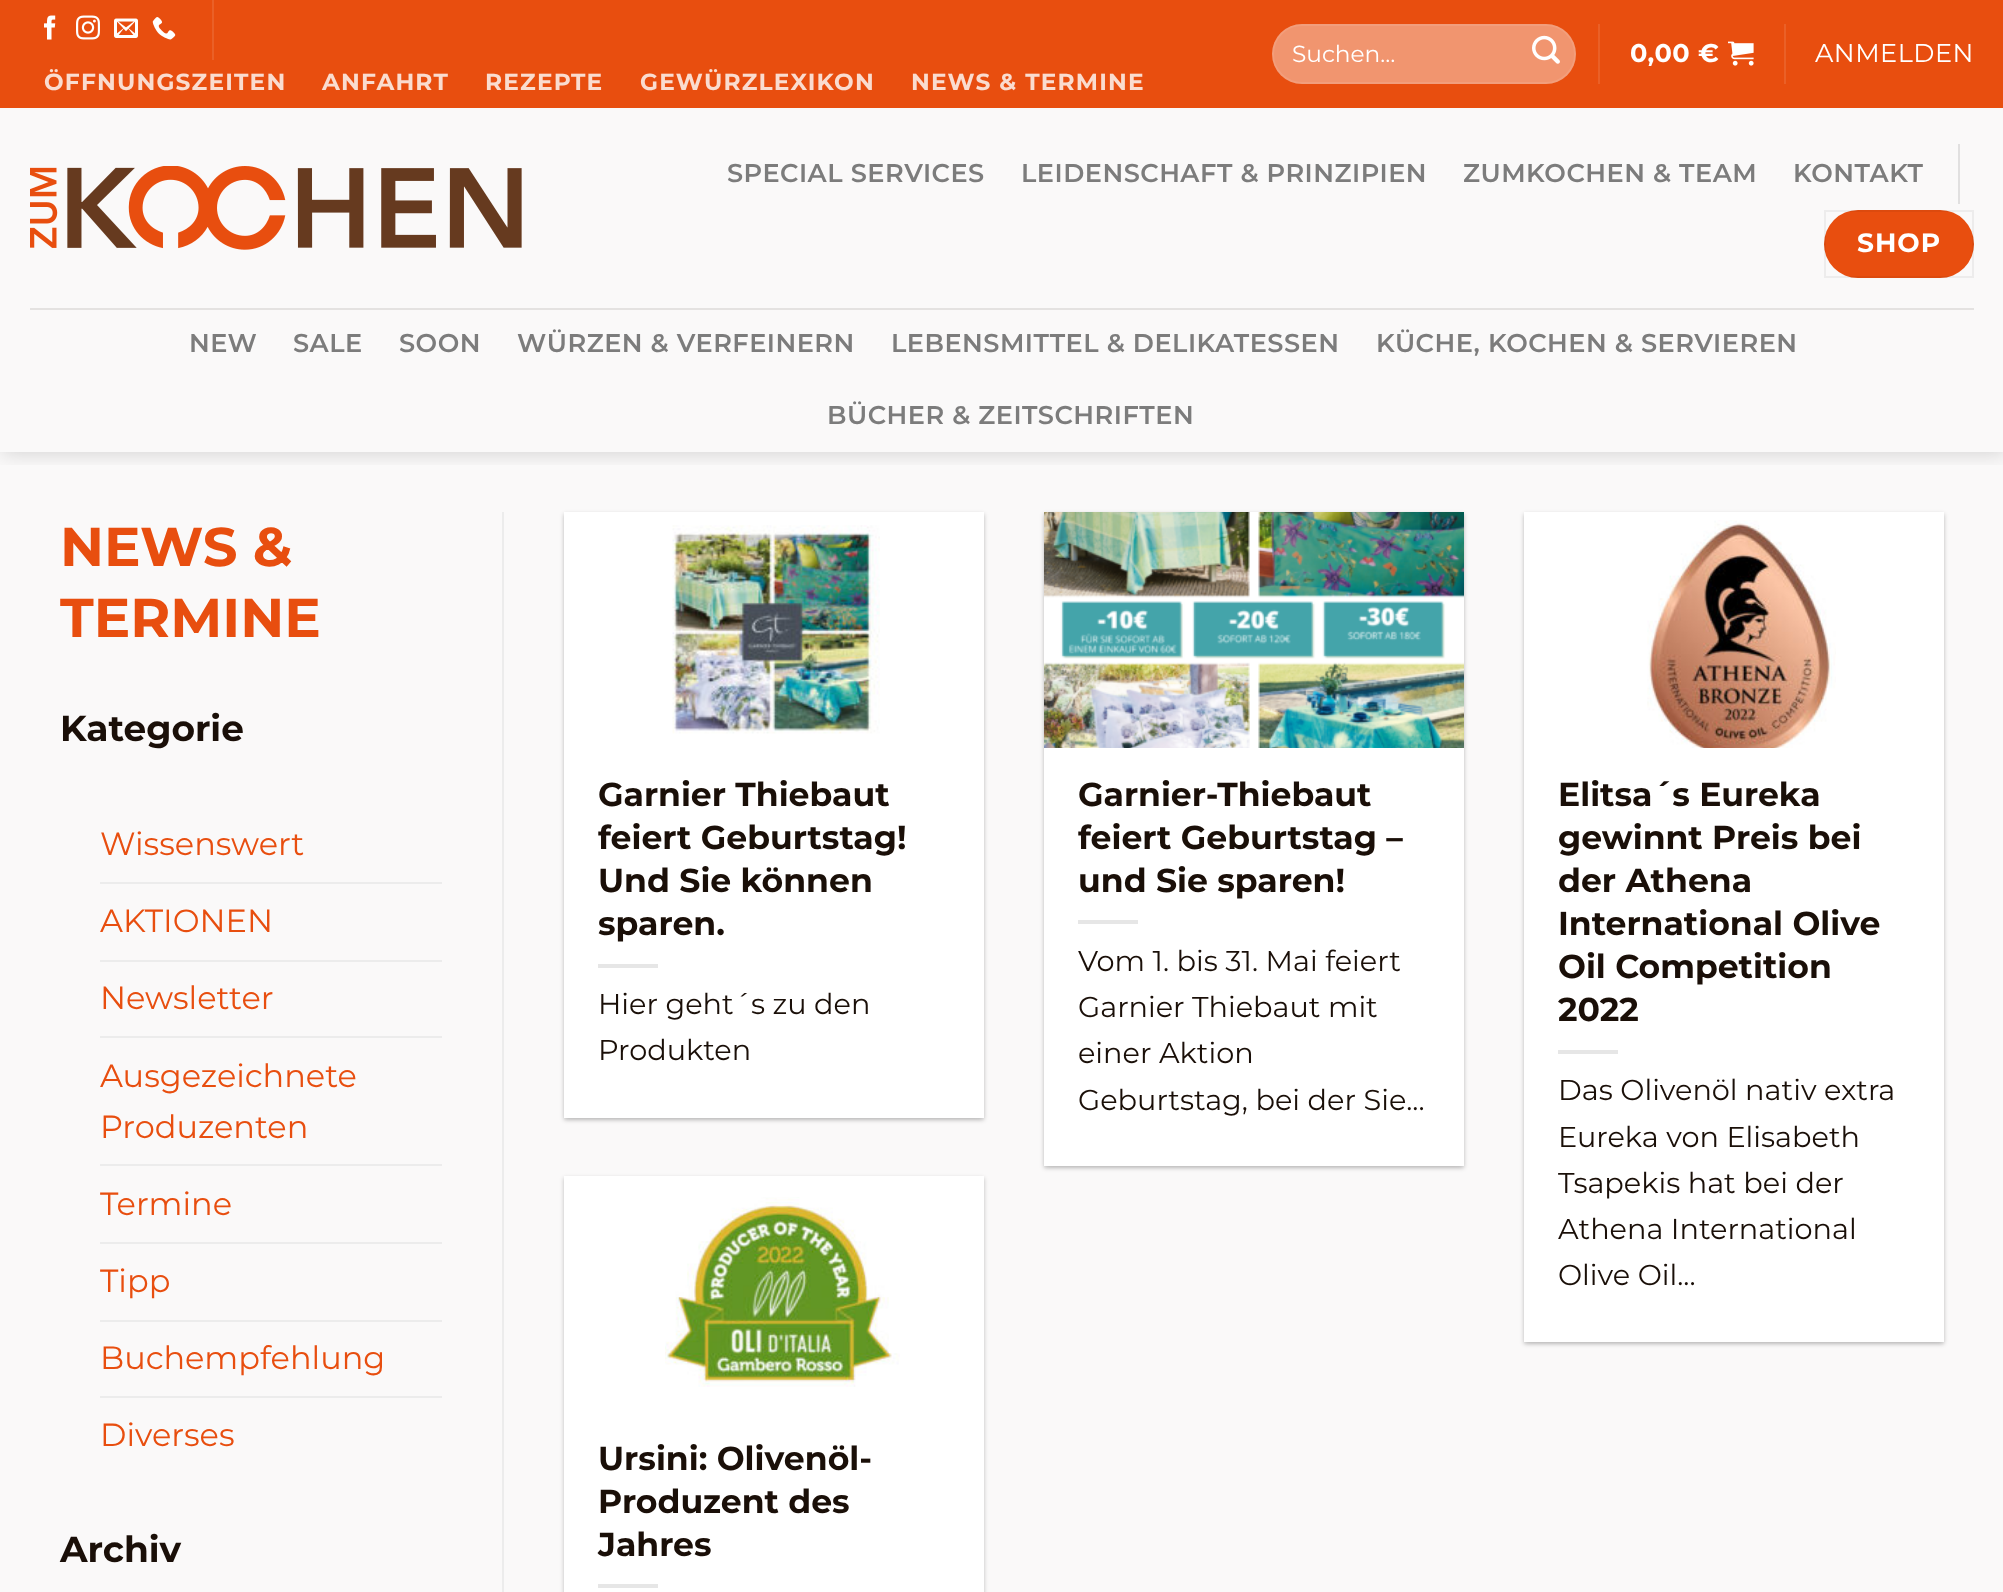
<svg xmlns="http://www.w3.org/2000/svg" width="2003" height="1592">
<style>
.a{font:23.25px Montserrat;fill:#fff}
.b{font:bold 25.6px Montserrat;letter-spacing:0.5px;fill:#fff}
.c{font:25.6px Montserrat;letter-spacing:0.5px;fill:#fff}
.d{font:bold 23.25px Montserrat;letter-spacing:1.2px;fill:#fadccf}
.e{font:600 25.6px Montserrat;letter-spacing:0.5px;fill:#7c7c7c}
.f{font:bold 26.5px Montserrat;letter-spacing:1px;fill:#fff}
.g{font:bold 54.5px Montserrat;fill:#e84e0f}
.h{font:bold 36px Montserrat;fill:#1a0f08}
.i{font:32px Montserrat;fill:#e84e0f}
.j{font:bold 33.1px Montserrat;fill:#1a0f08}
.k{font:28.75px Montserrat;fill:#1a0f08}
</style>
<defs>
<clipPath id="clip1"><path d="M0 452h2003v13H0z"/></clipPath>
</defs>
<rect width="100%" height="100%" fill="#faf9f9"/>
<g clip-path="url(#clip1)">
<path fill="#00000026" filter="blur(10px)" d="M2 2h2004v452H2z"/>
</g>
<path fill="#e84e0f" d="M0 0h2003v108H0z"/>
<rect fill="#f1956f" x="1272" y="24" width="304" height="60" rx="30"/>
<rect fill="none" stroke="#ffffff17" stroke-width="2" x="1273" y="25" width="302" height="58" rx="29"/>
<image href="1.png" x="1532" y="35" width="28" height="29"/>
<path fill="#ea6027" d="M1598 24h2v60H1598z"/>
<image href="2.png" x="1728" y="41" width="26" height="25"/>
<path fill="#ea6027" d="M1784 24h2v60H1784z"/>
<image href="3.png" x="44" y="15" width="12" height="25"/>
<image href="4.png" x="76" y="15" width="24" height="25"/>
<image href="5.png" x="114" y="18" width="24" height="20"/>
<image href="6.png" x="152" y="17" width="24" height="23"/>
<path fill="#ea6027" d="M212 0h2v60H212z"/>
<image href="7.png" x="30" y="166" width="492" height="84"/>
<path fill="#e1e0e0" d="M1958 144h2v60H1958z"/>
<rect fill="#e84e0f" x="1824" y="210" width="150" height="68" rx="34"/>
<path fill="none" stroke="#0000000d" stroke-width="2" d="M1825 211h148v66H1825z"/>
<path fill="#e4e2e1" d="M30 308h1944v2H30z"/>
<path fill="#ececec" d="M100 882h342v2H100z"/>
<path fill="#ececec" d="M100 960h342v2H100z"/>
<path fill="#ececec" d="M100 1036h342v2H100z"/>
<path fill="#ececec" d="M100 1164h342v2H100z"/>
<path fill="#ececec" d="M100 1242h342v2H100z"/>
<path fill="#ececec" d="M100 1320h342v2H100z"/>
<path fill="#ececec" d="M100 1396h342v2H100z"/>
<path fill="#ececec" d="M502 512h2v1080H502z"/>
<path fill="#0000003d" filter="blur(2px)" d="M564 514h420v606H564z"/>
<path fill="#0000001f" filter="blur(3px)" d="M568 518h412v598H568z"/>
<path fill="#fff" d="M564 512h420v606H564z"/>
<image href="8.png" x="672" y="525" width="208" height="209"/>
<path fill="#e6e6e6" d="M598 964h60v4H598z"/>
<path fill="#0000003d" filter="blur(2px)" d="M1044 514h420v654H1044z"/>
<path fill="#0000001f" filter="blur(3px)" d="M1048 518h412v646H1048z"/>
<path fill="#fff" d="M1044 748h420v418H1044z"/>
<image href="9.png" x="1044" y="512" width="420" height="236"/>
<path fill="#e6e6e6" d="M1078 920h60v4H1078z"/>
<path fill="#0000003d" filter="blur(2px)" d="M1524 514h420v830H1524z"/>
<path fill="#0000001f" filter="blur(3px)" d="M1528 518h412v822H1528z"/>
<path fill="#fff" d="M1524 512h420v830H1524z"/>
<image href="10.png" x="1647" y="520" width="189" height="228"/>
<path fill="#e6e6e6" d="M1558 1050h60v4H1558z"/>
<path fill="#0000003d" filter="blur(2px)" d="M564 1178h420v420H564z"/>
<path fill="#fff" d="M564 1176h420v416H564z"/>
<image href="11.png" x="665" y="1197" width="235" height="190"/>
<path fill="#e6e6e6" d="M598 1584h60v4H598z"/>
<text class="a" x="1292" y="62">Suchen…</text>
<text class="b" x="1630" y="62">0,00 €</text>
<text class="c" x="1815" y="62">ANMELDEN</text>
<text class="d" x="44" y="90">ÖFFNUNGSZEITEN</text>
<text class="d" x="322" y="90">ANFAHRT</text>
<text class="d" x="485" y="90">REZEPTE</text>
<text class="d" x="640" y="90">GEWÜRZLEXIKON</text>
<text class="d" x="911" y="90">NEWS &amp; TERMINE</text>
<text class="e" x="727" y="182">SPECIAL SERVICES</text>
<text class="e" x="1021" y="182">LEIDENSCHAFT &amp; PRINZIPIEN</text>
<text class="e" x="1463" y="182">ZUMKOCHEN &amp; TEAM</text>
<text class="e" x="1793" y="182">KONTAKT</text>
<text class="f" x="1857" y="252">SHOP</text>
<text class="e" x="189" y="352">NEW</text>
<text class="e" x="293" y="352">SALE</text>
<text class="e" x="399" y="352">SOON</text>
<text class="e" x="517" y="352">WÜRZEN &amp; VERFEINERN</text>
<text class="e" x="891" y="352">LEBENSMITTEL &amp; DELIKATESSEN</text>
<text class="e" x="1376" y="352">KÜCHE, KOCHEN &amp; SERVIEREN</text>
<text class="e" x="827" y="424">BÜCHER &amp; ZEITSCHRIFTEN</text>
<text class="g" x="60" y="566">NEWS &amp;</text>
<text class="g" x="60" y="637">TERMINE</text>
<text class="h" x="60" y="741">Kategorie</text>
<text class="i" x="100" y="855">Wissenswert</text>
<text class="i" x="100" y="932">AKTIONEN</text>
<text class="i" x="100" y="1009">Newsletter</text>
<text class="i" x="100" y="1087">Ausgezeichnete</text>
<text class="i" x="100" y="1138">Produzenten</text>
<text class="i" x="100" y="1215">Termine</text>
<text class="i" x="100" y="1292">Tipp</text>
<text class="i" x="100" y="1369">Buchempfehlung</text>
<text class="i" x="100" y="1446">Diverses</text>
<text class="h" x="60" y="1562">Archiv</text>
<text class="j" x="598" y="806">Garnier Thiebaut</text>
<text class="j" x="598" y="849">feiert Geburtstag!</text>
<text class="j" x="598" y="892">Und Sie können</text>
<text class="j" x="598" y="935">sparen.</text>
<text class="k" x="598" y="1014">Hier geht´s zu den</text>
<text class="k" x="598" y="1060">Produkten</text>
<text class="j" x="1078" y="806">Garnier-Thiebaut</text>
<text class="j" x="1078" y="849">feiert Geburtstag –</text>
<text class="j" x="1078" y="892">und Sie sparen!</text>
<text class="k" x="1078" y="971">Vom 1. bis 31. Mai feiert</text>
<text class="k" x="1078" y="1017">Garnier Thiebaut mit</text>
<text class="k" x="1078" y="1063">einer Aktion</text>
<text class="k" x="1078" y="1110">Geburtstag, bei der Sie...</text>
<text class="j" x="1558" y="806">Elitsa´s Eureka</text>
<text class="j" x="1558" y="849">gewinnt Preis bei</text>
<text class="j" x="1558" y="892">der Athena</text>
<text class="j" x="1558" y="935">International Olive</text>
<text class="j" x="1558" y="978">Oil Competition</text>
<text class="j" x="1558" y="1021">2022</text>
<text class="k" x="1558" y="1100">Das Olivenöl nativ extra</text>
<text class="k" x="1558" y="1147">Eureka von Elisabeth</text>
<text class="k" x="1558" y="1193">Tsapekis hat bei der</text>
<text class="k" x="1558" y="1239">Athena International</text>
<text class="k" x="1558" y="1285">Olive Oil...</text>
<text class="j" x="598" y="1470">Ursini: Olivenöl-</text>
<text class="j" x="598" y="1513">Produzent des</text>
<text class="j" x="598" y="1556">Jahres</text>
</svg>
